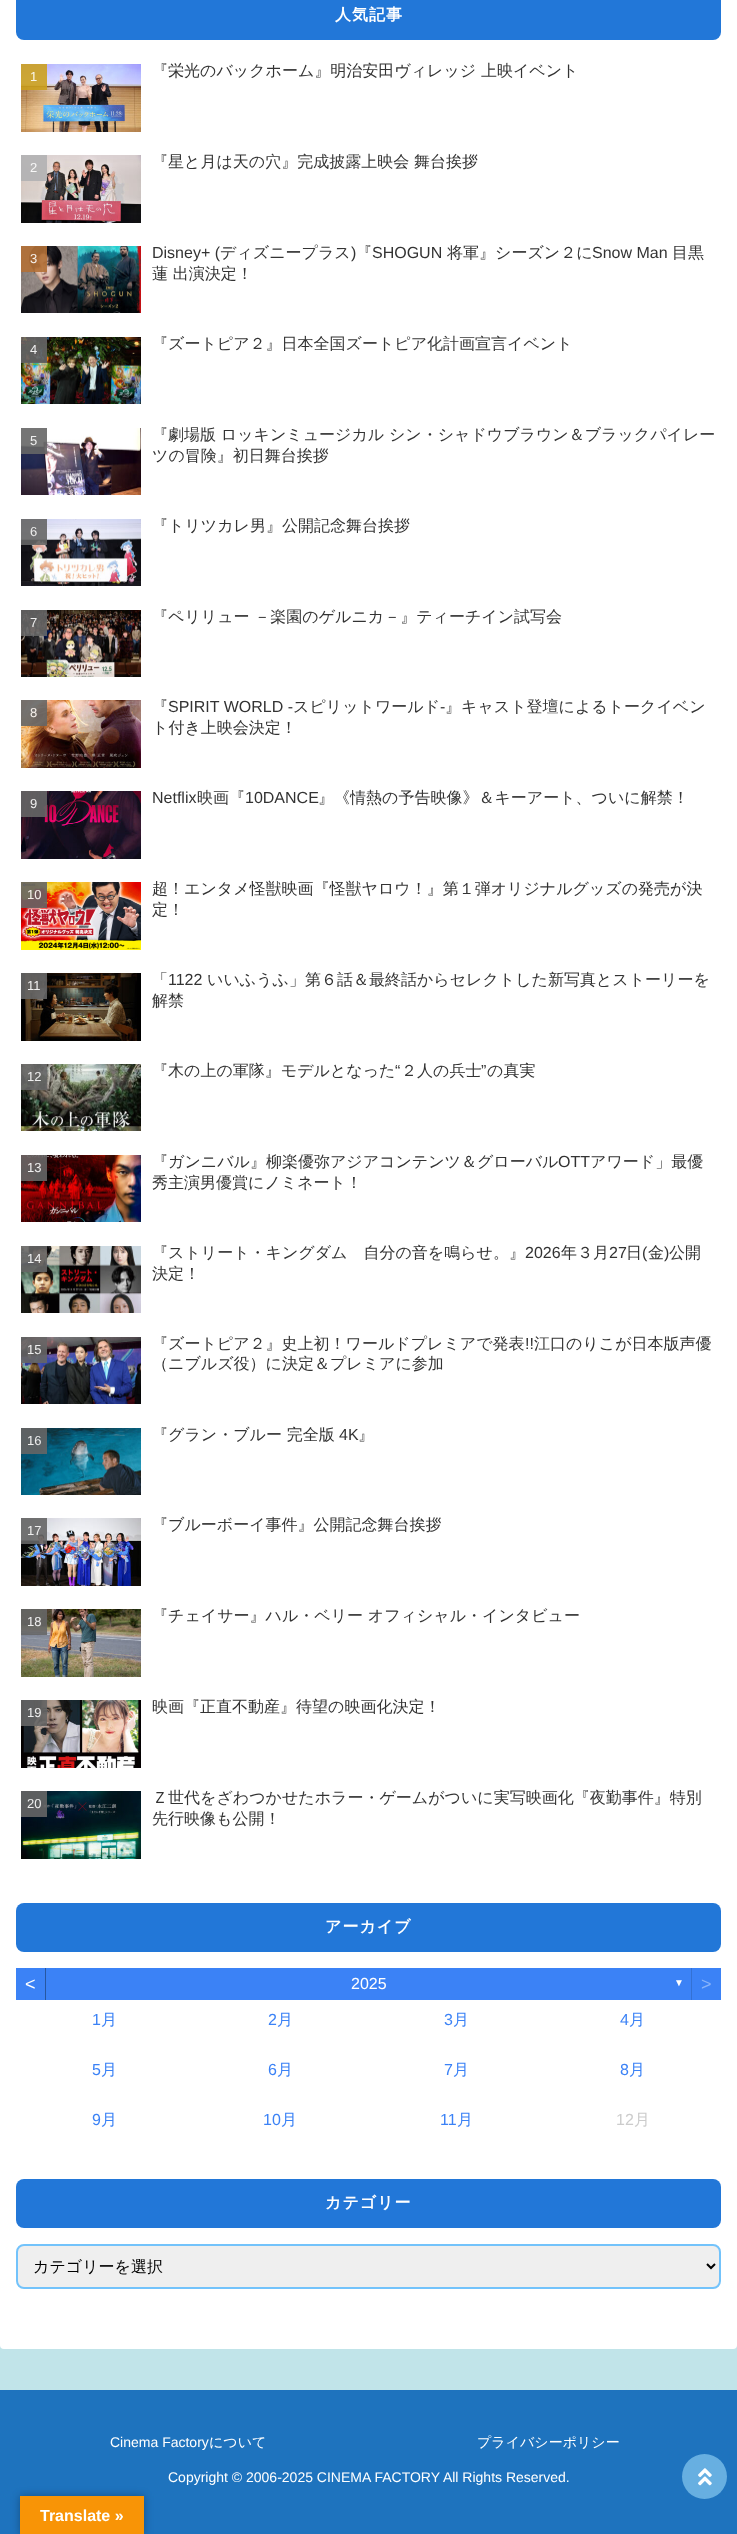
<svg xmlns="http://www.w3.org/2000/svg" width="737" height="2534">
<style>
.a{font:bold 16px WenQuanYi Zen Hei;letter-spacing:1px;fill:#fff}
.b{font:13px Liberation Sans;fill:#faf6eb}
.c{font:500 16px WenQuanYi Zen Hei;fill:#333}
.d{font:13px Liberation Sans;fill:#f8f8f8}
.e{font:13px Liberation Sans;fill:#f6f0eb}
.f{font:16px Liberation Sans;fill:#333}
.g{font:13px Liberation Sans;fill:#efefef}
.h{font:18px Liberation Sans;fill:#fff}
.i{font:16px Liberation Sans;fill:#fff}
.j{font:10px Liberation Sans;fill:#fff}
.k{font:18px Liberation Sans;fill:#89b4fa}
.l{font:16px Liberation Sans;fill:#3b82f6}
.m{font:500 16px WenQuanYi Zen Hei;fill:#3b82f6}
.n{font:16px Liberation Sans;fill:#ccc}
.o{font:500 16px WenQuanYi Zen Hei;fill:#ccc}
.p{font:500 16px WenQuanYi Zen Hei;fill:#000}
.q{font:14px Liberation Sans;fill:#fff}
.r{font:500 14px WenQuanYi Zen Hei;fill:#fff}
.s{font:bold 16px Liberation Sans;fill:#fff}
</style>
<rect width="100%" height="100%" fill="#c1e4e9"/>
<rect fill="#fff" y="-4" width="737" height="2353" rx="4"/>
<rect fill="#2277d8" x="16" y="-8" width="705" height="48" rx="8"/>
<image href="1.png" x="21" y="64" width="120" height="68"/>
<path fill="#cca11fe6" d="M21 64h26v26H21z"/>
<image href="2.png" x="21" y="155" width="120" height="68"/>
<path fill="#b1b1b3e6" d="M21 155h26v26H21z"/>
<image href="3.png" x="21" y="246" width="120" height="67"/>
<path fill="#b37036e6" d="M21 246h26v26H21z"/>
<image href="4.png" x="21" y="337" width="120" height="67"/>
<path fill="#666666e6" d="M21 337h26v26H21z"/>
<image href="5.png" x="21" y="428" width="120" height="67"/>
<path fill="#666666e6" d="M21 428h26v26H21z"/>
<image href="6.png" x="21" y="519" width="120" height="67"/>
<path fill="#666666e6" d="M21 519h26v26H21z"/>
<image href="7.png" x="21" y="610" width="120" height="67"/>
<path fill="#666666e6" d="M21 610h26v26H21z"/>
<image href="8.png" x="21" y="700" width="120" height="68"/>
<path fill="#666666e6" d="M21 700h26v26H21z"/>
<image href="9.png" x="21" y="791" width="120" height="68"/>
<path fill="#666666e6" d="M21 791h26v26H21z"/>
<image href="10.png" x="21" y="882" width="120" height="68"/>
<path fill="#666666e6" d="M21 882h26v26H21z"/>
<image href="11.png" x="21" y="973" width="120" height="68"/>
<path fill="#666666e6" d="M21 973h26v26H21z"/>
<image href="12.png" x="21" y="1064" width="120" height="67"/>
<path fill="#666666e6" d="M21 1064h26v26H21z"/>
<image href="13.png" x="21" y="1155" width="120" height="67"/>
<path fill="#666666e6" d="M21 1155h26v26H21z"/>
<image href="14.png" x="21" y="1246" width="120" height="67"/>
<path fill="#666666e6" d="M21 1246h26v26H21z"/>
<image href="15.png" x="21" y="1337" width="120" height="67"/>
<path fill="#666666e6" d="M21 1337h26v26H21z"/>
<image href="16.png" x="21" y="1428" width="120" height="67"/>
<path fill="#666666e6" d="M21 1428h26v26H21z"/>
<image href="17.png" x="21" y="1518" width="120" height="68"/>
<path fill="#666666e6" d="M21 1518h26v26H21z"/>
<image href="18.png" x="21" y="1609" width="120" height="68"/>
<path fill="#666666e6" d="M21 1609h26v26H21z"/>
<image href="19.png" x="21" y="1700" width="120" height="68"/>
<path fill="#666666e6" d="M21 1700h26v26H21z"/>
<image href="20.png" x="21" y="1791" width="120" height="68"/>
<path fill="#666666e6" d="M21 1791h26v26H21z"/>
<rect fill="#2277d8" x="16" y="1903" width="705" height="49" rx="8"/>
<path fill="#3b82f6" d="M16 1968h705v32H16z"/>
<path fill="#2757a1" d="M45 1968h1v32H45z"/>
<path fill="#3371d4" d="M691 1968h1v32H691z"/>
<rect fill="#2277d8" x="16" y="2179" width="705" height="49" rx="8"/>
<rect fill="#efefef" stroke="#73c3fb" stroke-width="2" x="17" y="2245" width="703" height="43" rx="7"/>
<path fill="none" stroke="#000" stroke-width="2" d="M707 2264l4 4l4-4"/>
<path fill="#1e73be" d="M0 2390h737v144H0z"/>
<circle fill="#67afe1" cx="704.5" cy="2476.5" r="22.5"/>
<image href="21.png" x="698" y="2468" width="14" height="18"/>
<path fill="#0000004d" filter="blur(4.5px)" d="M20 2496h124v38H20z"/>
<path fill="#f89406" d="M20 2496h124v38H20z"/>
<text class="a" x="335" y="20">人気記事</text>
<text class="b" x="30" y="81">1</text>
<text class="c" x="152" y="76">『栄光のバックホーム』明治安田ヴィレッジ 上映イベント</text>
<text class="d" x="30" y="172">2</text>
<text class="c" x="152" y="167">『星と月は天の穴』完成披露上映会 舞台挨拶</text>
<text class="e" x="30" y="263">3</text>
<text class="f" x="152" y="258">Disney+ (</text>
<text class="c" x="220" y="258">ディズニープラス</text>
<text class="f" x="351" y="258">)</text>
<text class="c" x="356" y="258">『</text>
<text class="f" x="372" y="258">SHOGUN</text>
<text class="c" x="447" y="258">将軍』シーズン２に</text>
<text class="f" x="592" y="258">Snow Man</text>
<text class="c" x="672" y="258">目黒</text>
<text class="c" x="152" y="279">蓮 出演決定！</text>
<text class="g" x="30" y="354">4</text>
<text class="c" x="152" y="349">『ズートピア２』日本全国ズートピア化計画宣言イベント</text>
<text class="g" x="30" y="445">5</text>
<text class="c" x="152" y="440">『劇場版 ロッキンミュージカル シン・シャドウブラウン＆ブラックパイレー</text>
<text class="c" x="152" y="461">ツの冒険』初日舞台挨拶</text>
<text class="g" x="30" y="536">6</text>
<text class="c" x="152" y="531">『トリツカレ男』公開記念舞台挨拶</text>
<text class="g" x="30" y="627">7</text>
<text class="c" x="152" y="622">『ペリリュー －楽園のゲルニカ－』ティーチイン試写会</text>
<text class="e" x="30" y="717">8</text>
<text class="c" x="152" y="712">『</text>
<text class="f" x="168" y="712">SPIRIT WORLD -</text>
<text class="c" x="293" y="712">スピリットワールド</text>
<text class="f" x="440" y="712">-</text>
<text class="c" x="445" y="712">』キャスト登壇によるトークイベン</text>
<text class="c" x="152" y="733">ト付き上映会決定！</text>
<text class="g" x="30" y="808">9</text>
<text class="f" x="152" y="803">Netflix</text>
<text class="c" x="197" y="803">映画『</text>
<text class="f" x="245" y="803">10DANCE</text>
<text class="c" x="318" y="803">』《情熱の予告映像》＆キーアート、ついに解禁！</text>
<text class="e" x="27" y="899">10</text>
<text class="c" x="152" y="894">超！エンタメ怪獣映画『怪獣ヤロウ！』第１弾オリジナルグッズの発売が決</text>
<text class="c" x="152" y="915">定！</text>
<text class="g" x="27" y="990">11</text>
<text class="c" x="152" y="985">「</text>
<text class="f" x="168" y="985">1122</text>
<text class="c" x="207" y="985">いいふうふ」第６話＆最終話からセレクトした新写真とストーリーを</text>
<text class="c" x="152" y="1006">解禁</text>
<text class="g" x="27" y="1081">12</text>
<text class="c" x="152" y="1076">『木の上の軍隊』モデルとなった</text>
<text class="f" x="395" y="1076">“</text>
<text class="c" x="401" y="1076">２人の兵士</text>
<text class="f" x="481" y="1076">”</text>
<text class="c" x="487" y="1076">の真実</text>
<text class="g" x="27" y="1172">13</text>
<text class="c" x="152" y="1167">『ガンニバル』柳楽優弥アジアコンテンツ＆グローバル</text>
<text class="f" x="558" y="1167">OTT</text>
<text class="c" x="590" y="1167">アワード」最優</text>
<text class="c" x="152" y="1188">秀主演男優賞にノミネート！</text>
<text class="g" x="27" y="1263">14</text>
<text class="c" x="152" y="1258">『ストリート・キングダム　自分の音を鳴らせ。』</text>
<text class="f" x="525" y="1258">2026</text>
<text class="c" x="561" y="1258">年３月</text>
<text class="f" x="609" y="1258">27</text>
<text class="c" x="626" y="1258">日</text>
<text class="f" x="642" y="1258">(</text>
<text class="c" x="648" y="1258">金</text>
<text class="f" x="664" y="1258">)</text>
<text class="c" x="669" y="1258">公開</text>
<text class="c" x="152" y="1279">決定！</text>
<text class="g" x="27" y="1354">15</text>
<text class="c" x="152" y="1349">『ズートピア２』史上初！ワールドプレミアで発表</text>
<text class="f" x="525" y="1349">!!</text>
<text class="c" x="534" y="1349">江口のりこが日本版声優</text>
<text class="c" x="152" y="1369">（ニブルズ役）に決定＆プレミアに参加</text>
<text class="g" x="27" y="1445">16</text>
<text class="c" x="152" y="1440">『グラン・ブルー 完全版</text>
<text class="f" x="339" y="1440">4K</text>
<text class="c" x="358" y="1440">』</text>
<text class="g" x="27" y="1535">17</text>
<text class="c" x="152" y="1530">『ブルーボーイ事件』公開記念舞台挨拶</text>
<text class="g" x="27" y="1626">18</text>
<text class="c" x="152" y="1621">『チェイサー』ハル・ベリー オフィシャル・インタビュー</text>
<text class="g" x="27" y="1717">19</text>
<text class="c" x="152" y="1712">映画『正直不動産』待望の映画化決定！</text>
<text class="g" x="27" y="1808">20</text>
<text class="c" x="152" y="1803">Ｚ世代をざわつかせたホラー・ゲームがついに実写映画化『夜勤事件』特別</text>
<text class="c" x="152" y="1824">先行映像も公開！</text>
<text class="a" x="325" y="1932">アーカイブ</text>
<text class="h" x="25" y="1990">&lt;</text>
<text class="i" x="351" y="1989">2025</text>
<text class="j" x="674" y="1986">▼</text>
<text class="k" x="701" y="1990">&gt;</text>
<text class="l" x="92" y="2025">1</text>
<text class="m" x="101" y="2025">月</text>
<text class="l" x="268" y="2025">2</text>
<text class="m" x="277" y="2025">月</text>
<text class="l" x="444" y="2025">3</text>
<text class="m" x="453" y="2025">月</text>
<text class="l" x="620" y="2025">4</text>
<text class="m" x="629" y="2025">月</text>
<text class="l" x="92" y="2075">5</text>
<text class="m" x="101" y="2075">月</text>
<text class="l" x="268" y="2075">6</text>
<text class="m" x="277" y="2075">月</text>
<text class="l" x="444" y="2075">7</text>
<text class="m" x="453" y="2075">月</text>
<text class="l" x="620" y="2075">8</text>
<text class="m" x="629" y="2075">月</text>
<text class="l" x="92" y="2125">9</text>
<text class="m" x="101" y="2125">月</text>
<text class="l" x="263" y="2125">10</text>
<text class="m" x="281" y="2125">月</text>
<text class="l" x="440" y="2125">11</text>
<text class="m" x="457" y="2125">月</text>
<text class="n" x="616" y="2125">12</text>
<text class="o" x="634" y="2125">月</text>
<text class="a" x="325" y="2208">カテゴリー</text>
<text class="p" x="33" y="2272">カテゴリーを選択</text>
<text class="q" x="110" y="2447">Cinema Factory</text>
<text class="r" x="209" y="2447">について</text>
<text class="r" x="477" y="2447">プライバシーポリシー</text>
<text class="q" x="168" y="2482">Copyright © 2006-2025 CINEMA FACTORY All Rights Reserved.</text>
<text class="s" x="40" y="2521">Translate »</text>
</svg>
